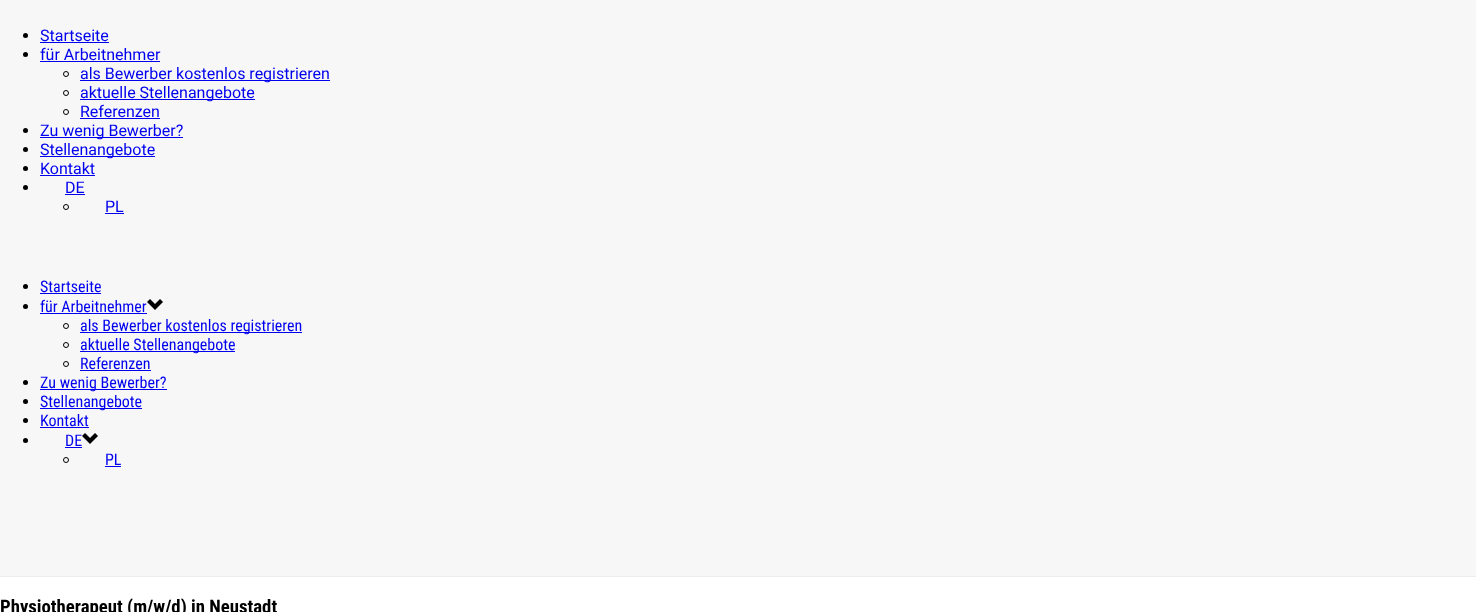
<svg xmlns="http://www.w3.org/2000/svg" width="1476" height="612">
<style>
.a{font:16px Roboto;fill:#00e}
.b{font:16px Roboto Condensed;fill:#00e}
.c{font:bold 18.75px Roboto Condensed;fill:#000}
</style>
<rect width="100%" height="100%" fill="#fff"/>
<path fill="#f7f7f7" d="M0 0h1476v576H0z"/>
<path fill="#ededed" d="M0 576h1476v1H0z"/>
<circle fill="#000" cx="25.5" cy="35.5" r="2.5"/>
<path fill="#00e" d="M40 42h69v1H40z"/>
<circle fill="#000" cx="25.5" cy="54.5" r="2.5"/>
<path fill="#00e" d="M40 61h120v1H40z"/>
<circle fill="none" stroke="#000" cx="66" cy="74" r="2.5"/>
<path fill="#00e" d="M80 80h250v1H80z"/>
<circle fill="none" stroke="#000" cx="66" cy="93" r="2.5"/>
<path fill="#00e" d="M80 99h175v1H80z"/>
<circle fill="none" stroke="#000" cx="66" cy="112" r="2.5"/>
<path fill="#00e" d="M80 118h80v1H80z"/>
<circle fill="#000" cx="25.5" cy="130.5" r="2.5"/>
<path fill="#00e" d="M40 137h143v1H40z"/>
<circle fill="#000" cx="25.5" cy="149.5" r="2.5"/>
<path fill="#00e" d="M40 156h115v1H40z"/>
<circle fill="#000" cx="25.5" cy="168.5" r="2.5"/>
<path fill="#00e" d="M40 175h55v1H40z"/>
<circle fill="#000" cx="25.5" cy="187.5" r="2.5"/>
<path fill="#00e" d="M65 194h20v1H65z"/>
<circle fill="none" stroke="#000" cx="66" cy="207" r="2.5"/>
<path fill="#00e" d="M105 213h19v1H105z"/>
<circle fill="#000" cx="25.5" cy="286.5" r="2.5"/>
<path fill="#00e" d="M40 293h61v1H40z"/>
<circle fill="#000" cx="25.5" cy="306.5" r="2.5"/>
<path fill="#00e" d="M40 313h107v1H40z"/>
<image href="1.png" x="147" y="299" width="16" height="11"/>
<circle fill="none" stroke="#000" cx="66" cy="326" r="2.5"/>
<path fill="#00e" d="M80 332h222v1H80z"/>
<circle fill="none" stroke="#000" cx="66" cy="345" r="2.5"/>
<path fill="#00e" d="M80 351h155v1H80z"/>
<circle fill="none" stroke="#000" cx="66" cy="364" r="2.5"/>
<path fill="#00e" d="M80 370h71v1H80z"/>
<circle fill="#000" cx="25.5" cy="382.5" r="2.5"/>
<path fill="#00e" d="M40 389h127v1H40z"/>
<circle fill="#000" cx="25.5" cy="401.5" r="2.5"/>
<path fill="#00e" d="M40 408h102v1H40z"/>
<circle fill="#000" cx="25.5" cy="420.5" r="2.5"/>
<path fill="#00e" d="M40 427h49v1H40z"/>
<circle fill="#000" cx="25.5" cy="440.5" r="2.5"/>
<path fill="#00e" d="M65 447h17v1H65z"/>
<image href="1.png" x="82" y="433" width="16" height="11"/>
<circle fill="none" stroke="#000" cx="66" cy="460" r="2.5"/>
<path fill="#00e" d="M105 466h16v1H105z"/>
<text class="a" x="40" y="41">Startseite</text>
<text class="a" x="40" y="60">für Arbeitnehmer</text>
<text class="a" x="80" y="79">als Bewerber kostenlos registrieren</text>
<text class="a" x="80" y="98">aktuelle Stellenangebote</text>
<text class="a" x="80" y="117">Referenzen</text>
<text class="a" x="40" y="136">Zu wenig Bewerber?</text>
<text class="a" x="40" y="155">Stellenangebote</text>
<text class="a" x="40" y="174">Kontakt</text>
<text class="a" x="65" y="193">DE</text>
<text class="a" x="105" y="212">PL</text>
<text class="b" x="40" y="292">Startseite</text>
<text class="b" x="40" y="312">für Arbeitnehmer</text>
<text class="b" x="80" y="331">als Bewerber kostenlos registrieren</text>
<text class="b" x="80" y="350">aktuelle Stellenangebote</text>
<text class="b" x="80" y="369">Referenzen</text>
<text class="b" x="40" y="388">Zu wenig Bewerber?</text>
<text class="b" x="40" y="407">Stellenangebote</text>
<text class="b" x="40" y="426">Kontakt</text>
<text class="b" x="65" y="446">DE</text>
<text class="b" x="105" y="465">PL</text>
<text class="c" x="0" y="613">Physiotherapeut (m/w/d) in Neustadt</text>
</svg>
